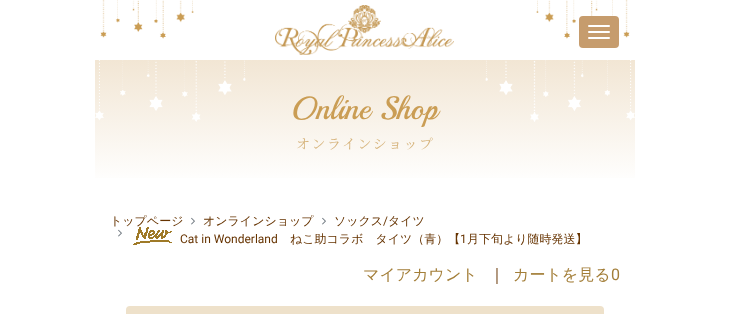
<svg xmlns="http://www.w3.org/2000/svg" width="729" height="314">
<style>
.a{font:32px Playball;fill:#ca9d54}
.b{font:14px Noto Serif JP;letter-spacing:1.5px;fill:#d6b37b}
.c{font:500 12px WenQuanYi Zen Hei;fill:#630}
.d{font:12px Roboto;fill:#630}
.e{font:500 16px WenQuanYi Zen Hei;fill:#a37e38}
.f{font:500 16px WenQuanYi Zen Hei;fill:#630}
.g{font:16px Roboto;fill:#a37e38}
</style>
<defs>
<linearGradient id="g1" gradientUnits="userSpaceOnUse" x1="365" y1="60" x2="365" y2="185"><stop offset="0" stop-color="#f2e6d4"/><stop offset="1" stop-color="#fff"/></linearGradient>
</defs>
<rect width="100%" height="100%" fill="#fff"/>
<image href="1.png" x="100" y="0" width="530" height="39"/>
<image href="2.png" x="275" y="5" width="179" height="50"/>
<rect fill="#c69c6d" x="579" y="16" width="40" height="32" rx="4"/>
<rect fill="#fff" x="588" y="25" width="22" height="2" rx="1"/>
<rect fill="#fff" x="588" y="31" width="22" height="2" rx="1"/>
<rect fill="#fff" x="588" y="37" width="22" height="2" rx="1"/>
<path fill="url(#g1)" d="M95 60h540v118H95z"/>
<image href="3.png" x="95" y="60" width="540" height="62"/>
<image href="4.png" x="191" y="217" width="4" height="8"/>
<image href="4.png" x="322" y="217" width="4" height="8"/>
<image href="4.png" x="118" y="229" width="4" height="8"/>
<image href="5.png" x="133" y="227" width="39" height="18"/>
<rect fill="#eee1ca" x="126" y="306" width="478" height="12" rx="4"/>
<text class="a" x="291" y="119">Online Shop</text>
<text class="b" x="296" y="149">オンラインショップ</text>
<text class="c" x="110" y="225">トップページ</text>
<text class="c" x="203" y="225">オンラインショップ</text>
<text class="c" x="334" y="225">ソックス</text>
<text class="d" x="383" y="225">/</text>
<text class="c" x="388" y="225">タイツ</text>
<text class="d" x="180" y="243">Cat in Wonderland</text>
<text class="c" x="290" y="243">ねこ助コラボ　タイツ（青）【</text>
<text class="d" x="460" y="243">1</text>
<text class="c" x="467" y="243">月下旬より随時発送】</text>
<text class="e" x="363" y="280">マイアカウント</text>
<text class="f" x="489" y="280">｜</text>
<text class="e" x="513" y="280">カートを見る</text>
<text class="g" x="611" y="280">0</text>
</svg>
